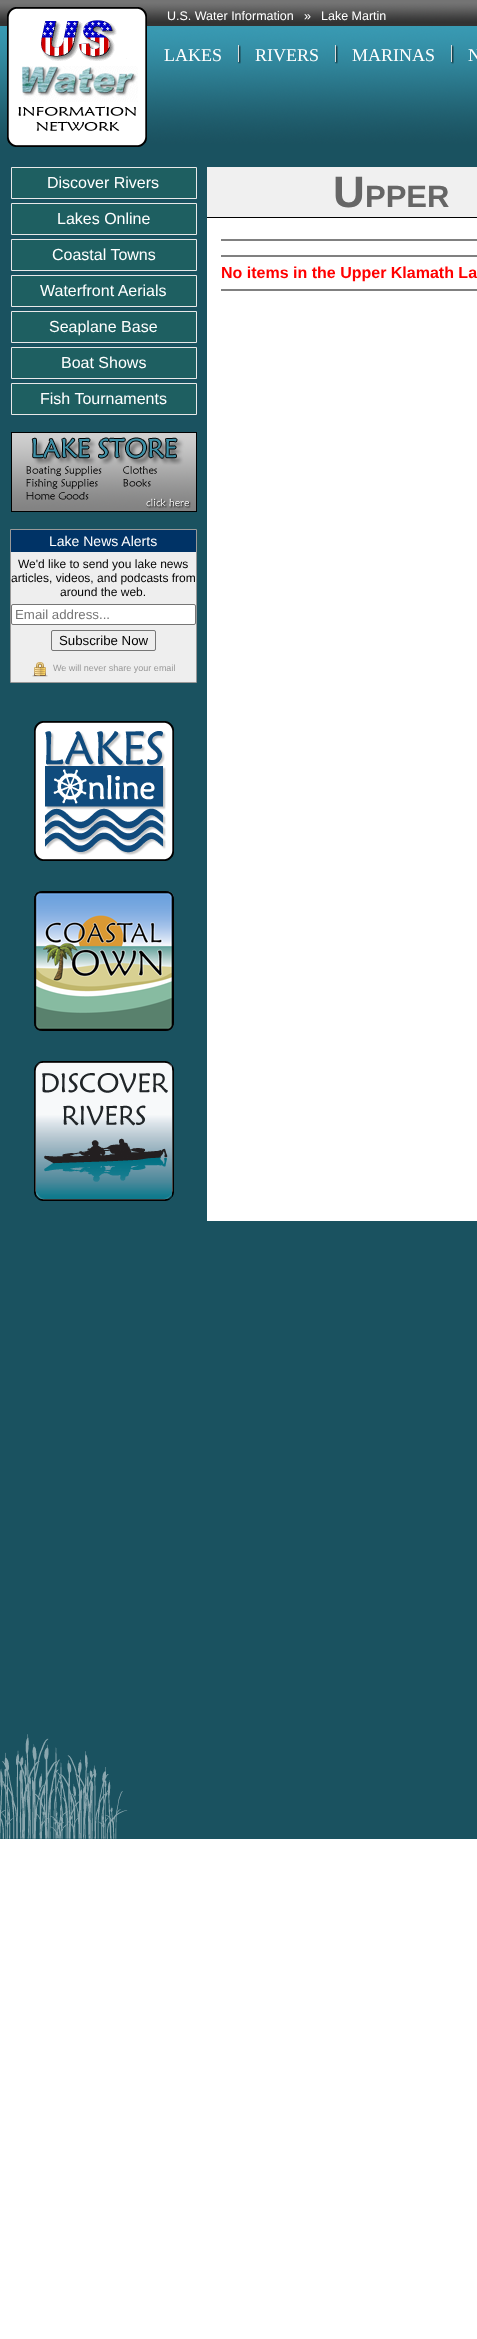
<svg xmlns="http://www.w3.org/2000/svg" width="477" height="2339">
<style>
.a{font:12.5px Liberation Sans;fill:#fff}
.b{font:18px Liberation Serif;fill:#fff}
.c{font:16px Liberation Sans;fill:#fff}
.d{font:14px Liberation Sans;fill:#fff}
.e{font:12px Liberation Sans;fill:#000}
.f{font:13.25px Liberation Sans;fill:#757575}
.g{font:13.25px Liberation Sans;fill:#000}
.h{font:9px Liberation Sans;fill:#999}
.i{font:bold 44px Liberation Sans;fill:#666}
.j{font:bold 31px Liberation Sans;fill:#666}
.k{font:bold 16px Liberation Sans;fill:#f00}
</style>
<rect width="100%" height="100%" fill="#fff"/>
<image href="1.png" x="0" y="0" width="477" height="26"/>
<image href="2.png" x="0" y="26" width="477" height="131"/>
<image href="3.png" x="7" y="7" width="140" height="140"/>
<image href="4.png" x="238" y="45" width="3" height="19"/>
<image href="5.png" x="335" y="45" width="3" height="19"/>
<image href="6.png" x="451" y="45" width="3" height="19"/>
<path fill="#1a5260" d="M0 157h477v1682H0z"/>
<path fill="#1e5f61" stroke="#e9e9e9" d="M11.5 167.5h185v31H11.5z"/>
<path fill="#1e5f61" stroke="#e9e9e9" d="M11.5 203.5h185v31H11.5z"/>
<path fill="#1e5f61" stroke="#e9e9e9" d="M11.5 239.5h185v31H11.5z"/>
<path fill="#1e5f61" stroke="#e9e9e9" d="M11.5 275.5h185v31H11.5z"/>
<path fill="#1e5f61" stroke="#e9e9e9" d="M11.5 311.5h185v31H11.5z"/>
<path fill="#1e5f61" stroke="#e9e9e9" d="M11.5 347.5h185v31H11.5z"/>
<path fill="#1e5f61" stroke="#e9e9e9" d="M11.5 383.5h185v31H11.5z"/>
<image href="7.png" x="11" y="432" width="186" height="80"/>
<path fill="#eee" d="M11 552h185v130H11z"/>
<path fill="none" stroke="#999" d="M10.5 529.5h186v153H10.5z"/>
<path fill="#036" d="M11 530h185v22H11z"/>
<rect fill="#fff" stroke="#767676" x="11.5" y="604.5" width="184" height="20" rx="1.5"/>
<rect fill="none" stroke="#767676" x="51.5" y="630.5" width="104" height="20" rx="1.5"/>
<image href="8.png" x="32" y="662" width="16" height="15"/>
<image href="9.png" x="34" y="721" width="140" height="140"/>
<image href="10.png" x="34" y="891" width="140" height="140"/>
<image href="11.png" x="34" y="1061" width="140" height="140"/>
<path fill="#fff" d="M207 218h270v1003H207z"/>
<path fill="#f0f0f0" d="M207 167h270v50H207z"/>
<path fill="#000" d="M207 217h270v1H207z"/>
<path fill="#808080" d="M221 239h256v2H221z"/>
<path fill="#808080" d="M221 255h256v2H221z"/>
<path fill="#808080" d="M221 289h256v2H221z"/>
<image href="12.png" x="0" y="1734" width="128" height="105"/>
<text class="a" x="167" y="20">U.S. Water Information</text>
<text class="a" x="304" y="20">»</text>
<text class="a" x="321" y="20">Lake Martin</text>
<text class="b" x="164" y="61">LAKES</text>
<text class="b" x="255" y="61">RIVERS</text>
<text class="b" x="352" y="61">MARINAS</text>
<text class="b" x="468" y="61">N</text>
<text class="c" x="47" y="188">Discover Rivers</text>
<text class="c" x="57" y="224">Lakes Online</text>
<text class="c" x="52" y="260">Coastal Towns</text>
<text class="c" x="40" y="296">Waterfront Aerials</text>
<text class="c" x="49" y="332">Seaplane Base</text>
<text class="c" x="61" y="368">Boat Shows</text>
<text class="c" x="40" y="404">Fish Tournaments</text>
<text class="d" x="49" y="546">Lake News Alerts</text>
<text class="e" x="18" y="568">We'd like to send you lake news</text>
<text class="e" x="11" y="582">articles, videos, and podcasts from</text>
<text class="e" x="60" y="596">around the web.</text>
<text class="f" x="15" y="619">Email address...</text>
<text class="g" x="59" y="645">Subscribe Now</text>
<text class="h" x="53" y="671">We will never share your email</text>
<text class="i" x="333" y="207">U</text>
<text class="j" x="365" y="207">PPER</text>
<text class="k" x="221" y="278">No items in the Upper Klamath La</text>
</svg>
